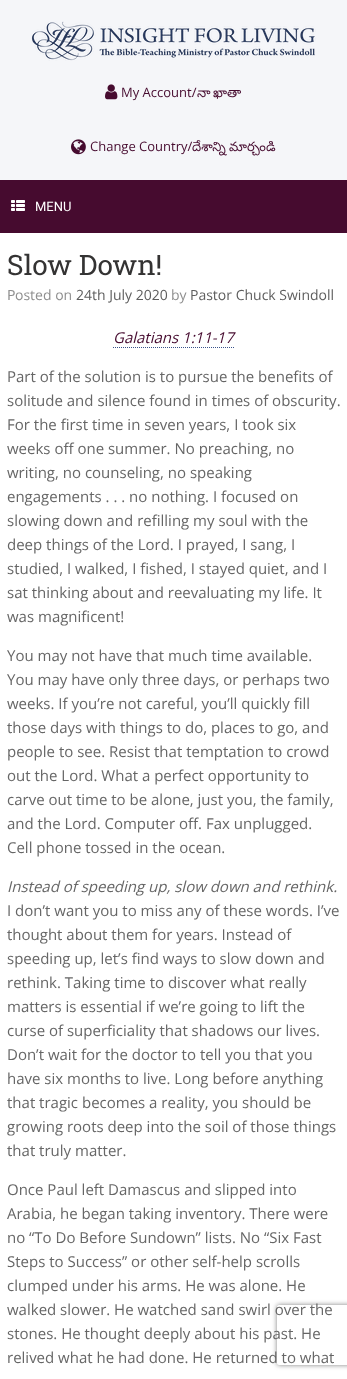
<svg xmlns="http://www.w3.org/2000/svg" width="347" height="1379">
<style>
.a{font:13px Open Sans;fill:#460b2f}
.b{font:13px Noto Sans Telugu;fill:#460b2f}
.c{font:13px Roboto;fill:#fff}
.d{font:28px Roboto Slab;fill:#343333}
.e{font:14px Noto Sans;fill:#8f8f8f}
.f{font:14px Open Sans;fill:#8f8f8f}
.g{font:14px Open Sans;fill:#5e5e5e}
.h{font:italic 15px Open Sans;fill:#460b2f}
.i{font:15px Open Sans;fill:#666}
.j{font:italic 15px Open Sans;fill:#666}
</style>
<defs>
<clipPath id="clip1"><path d="M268 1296h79v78h-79zm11 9h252c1 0 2 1 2 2v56c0 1-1 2-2 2h-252c-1 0-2-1-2-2v-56c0-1 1-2 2-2z" clip-rule="evenodd"/></clipPath>
</defs>
<rect width="100%" height="100%" fill="#f5f6f9"/>
<image href="1.png" x="31" y="21" width="285" height="40"/>
<image href="2.png" x="105" y="84" width="13" height="16"/>
<image href="3.png" x="71" y="139" width="15" height="16"/>
<path fill="#460b2f" d="M0 180h347v53H0z"/>
<image href="4.png" x="11" y="200" width="14" height="11"/>
<path fill="#fff" d="M0 233h347v1146H0z"/>
<path fill="none" stroke="#38528a" stroke-dasharray="1 1" d="M113 347.5h121"/>
<g clip-path="url(#clip1)">
<rect fill="#808080" filter="blur(2.5px)" x="277" y="1305" width="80" height="60" rx="2"/>
</g>
<text class="a" x="121" y="97">My Account/</text>
<text class="b" x="197" y="97">నా</text>
<text class="b" x="213" y="97">ఖాతా</text>
<text class="a" x="90" y="151">Change Country/</text>
<text class="b" x="192" y="151">దేశాన్ని</text>
<text class="b" x="229" y="151">మార్చండి</text>
<text class="c" x="35" y="211">MENU</text>
<text class="d" x="7" y="275">Slow Down!</text>
<text class="e" x="7" y="300">P</text>
<text class="f" x="15" y="300">osted on</text>
<text class="g" x="76" y="300">24th July 2020</text>
<text class="f" x="171" y="300">by</text>
<text class="g" x="190" y="300">Pastor Chuck Swindoll</text>
<text class="h" x="113" y="343">Galatians 1:11-17</text>
<text class="i" x="7" y="382">Part of the solution is to pursue the benefits of</text>
<text class="i" x="7" y="406">solitude and silence found in times of obscurity.</text>
<text class="i" x="7" y="430">For the first time in seven years, I took six</text>
<text class="i" x="7" y="454">weeks off one summer. No preaching, no</text>
<text class="i" x="7" y="478">writing, no counseling, no speaking</text>
<text class="i" x="7" y="502">engagements . . . no nothing. I focused on</text>
<text class="i" x="7" y="526">slowing down and refilling my soul with the</text>
<text class="i" x="7" y="550">deep things of the Lord. I prayed, I sang, I</text>
<text class="i" x="7" y="574">studied, I walked, I fished, I stayed quiet, and I</text>
<text class="i" x="7" y="598">sat thinking about and reevaluating my life. It</text>
<text class="i" x="7" y="622">was magnificent!</text>
<text class="i" x="7" y="661">You may not have that much time available.</text>
<text class="i" x="7" y="685">You may have only three days, or perhaps two</text>
<text class="i" x="7" y="709">weeks. If you’re not careful, you’ll quickly fill</text>
<text class="i" x="7" y="733">those days with things to do, places to go, and</text>
<text class="i" x="7" y="757">people to see. Resist that temptation to crowd</text>
<text class="i" x="7" y="781">out the Lord. What a perfect opportunity to</text>
<text class="i" x="7" y="805">carve out time to be alone, just you, the family,</text>
<text class="i" x="7" y="829">and the Lord. Computer off. Fax unplugged.</text>
<text class="i" x="7" y="853">Cell phone tossed in the ocean.</text>
<text class="j" x="7" y="892">Instead of speeding up, slow down and rethink.</text>
<text class="i" x="7" y="916">I don’t want you to miss any of these words. I’ve</text>
<text class="i" x="7" y="940">thought about them for years. Instead of</text>
<text class="i" x="7" y="964">speeding up, let’s find ways to slow down and</text>
<text class="i" x="7" y="988">rethink. Taking time to discover what really</text>
<text class="i" x="7" y="1012">matters is essential if we’re going to lift the</text>
<text class="i" x="7" y="1036">curse of superficiality that shadows our lives.</text>
<text class="i" x="7" y="1060">Don’t wait for the doctor to tell you that you</text>
<text class="i" x="7" y="1084">have six months to live. Long before anything</text>
<text class="i" x="7" y="1108">that tragic becomes a reality, you should be</text>
<text class="i" x="7" y="1132">growing roots deep into the soil of those things</text>
<text class="i" x="7" y="1156">that truly matter.</text>
<text class="i" x="7" y="1195">Once Paul left Damascus and slipped into</text>
<text class="i" x="7" y="1219">Arabia, he began taking inventory. There were</text>
<text class="i" x="7" y="1243">no “To Do Before Sundown” lists. No “Six Fast</text>
<text class="i" x="7" y="1267">Steps to Success” or other self-help scrolls</text>
<text class="i" x="7" y="1291">clumped under his arms. He was alone. He</text>
<text class="i" x="7" y="1315">walked slower. He watched sand swirl over the</text>
<text class="i" x="7" y="1339">stones. He thought deeply about his past. He</text>
<text class="i" x="7" y="1363">relived what he had done. He returned to what</text>
</svg>
